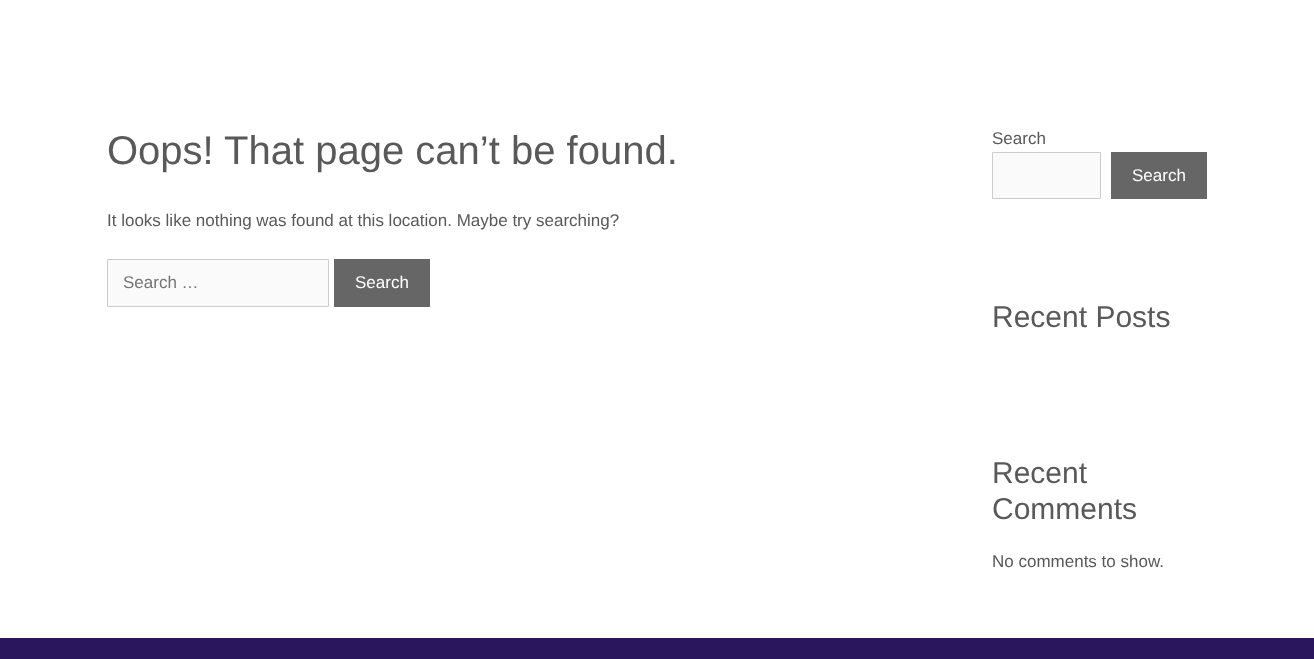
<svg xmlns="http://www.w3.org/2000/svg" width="1314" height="659">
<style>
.a{font:40px Liberation Sans;fill:#595959}
.b{font:17px Liberation Sans;fill:#595959}
.c{font:17px Liberation Sans;fill:#757575}
.d{font:17px Liberation Sans;fill:#fff}
.e{font:30px Liberation Sans;fill:#595959}
</style>
<rect width="100%" height="100%" fill="#fff"/>
<path fill="#fafafa" stroke="#ccc" d="M107.5 259.5h221v47H107.5z"/>
<path fill="#666" d="M334 259h96v48H334z"/>
<path fill="#fafafa" stroke="#ccc" d="M992.5 152.5h108v46H992.5z"/>
<path fill="#666" d="M1111 152h96v47H1111z"/>
<path fill="#29165d" d="M0 638h1314v21H0z"/>
<text class="a" x="107" y="164">Oops! That page can’t be found.</text>
<text class="b" x="107" y="226">It looks like nothing was found at this location. Maybe try searching?</text>
<text class="c" x="123" y="288">Search …</text>
<text class="d" x="355" y="288">Search</text>
<text class="b" x="992" y="144">Search</text>
<text class="d" x="1132" y="181">Search</text>
<text class="e" x="992" y="327">Recent Posts</text>
<text class="e" x="992" y="483">Recent</text>
<text class="e" x="992" y="519">Comments</text>
<text class="b" x="992" y="567">No comments to show.</text>
</svg>
